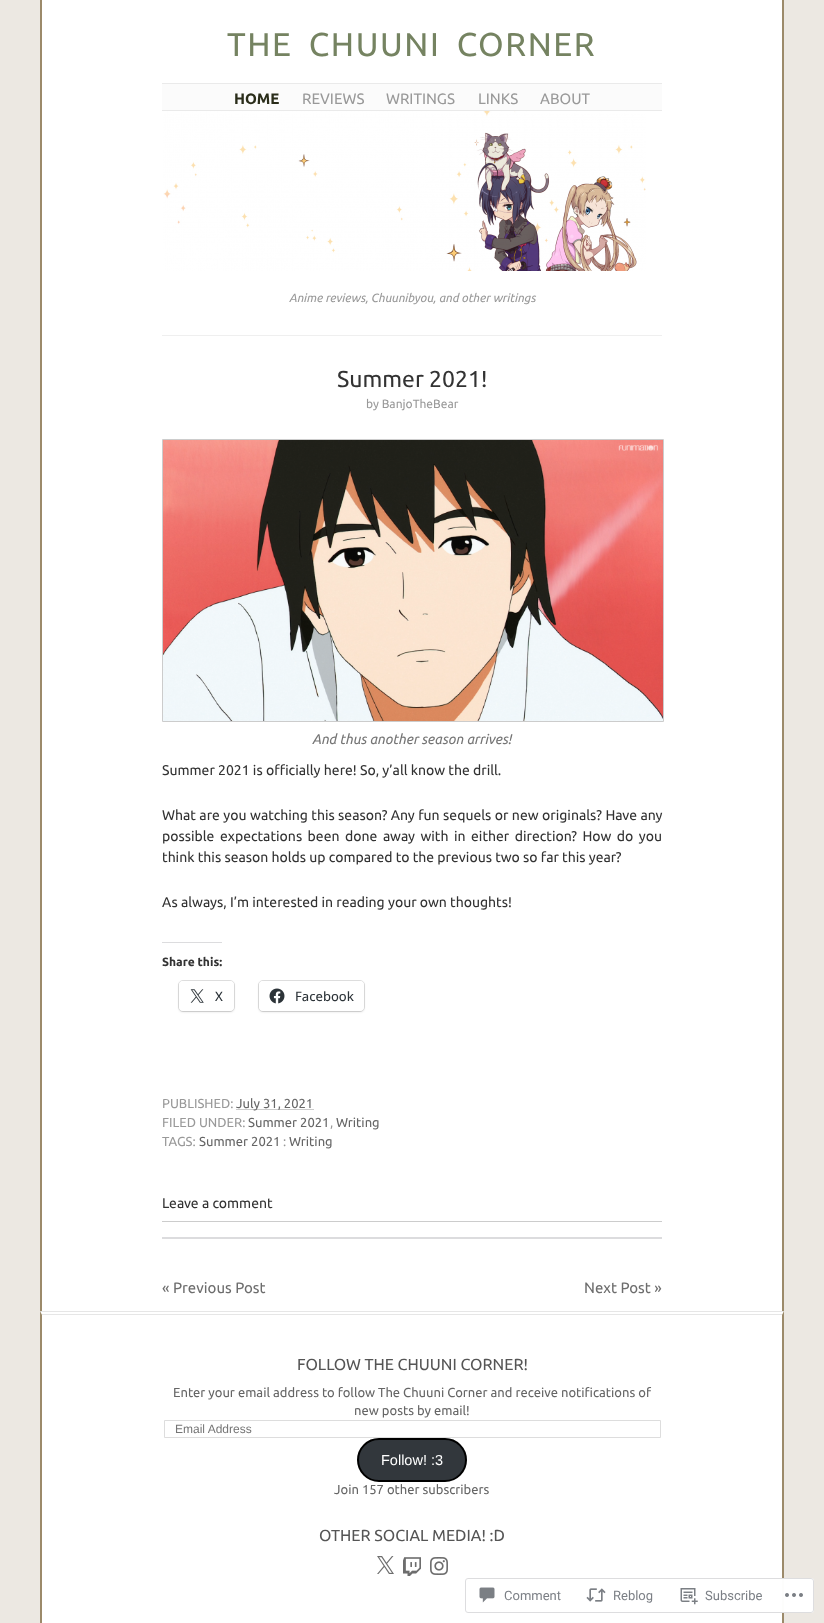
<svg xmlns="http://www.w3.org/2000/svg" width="824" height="1623">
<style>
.a{font:33px Ubuntu;letter-spacing:1.6px;fill:#758361}
.b{font:bold 15px Ubuntu;fill:#2a2d1a}
.c{font:15px Ubuntu;fill:#999}
.d{font:italic 12px Ubuntu;fill:#999}
.e{font:23px Ubuntu;fill:#333}
.f{font:12px Ubuntu;fill:#999}
.g{font:italic 14px Ubuntu;fill:#757575}
.h{font:14px Ubuntu;fill:#333}
.i{font:bold 12px Ubuntu;fill:#333}
.j{font:500 13px Open Sans;fill:#2c3338}
.k{font:13px Ubuntu;fill:#999}
.l{font:13px Ubuntu;fill:#666}
.m{font:15px Ubuntu;fill:#6d6d6d}
.n{font:16px Ubuntu;fill:#555}
.o{font:12px Liberation Sans;fill:#757575}
.p{font:14.5px Liberation Sans;fill:#fff}
.q{font:13px Roboto;fill:#7b7f85}
</style>
<rect width="100%" height="100%" fill="#ece8e2"/>
<path fill="#fff" d="M42 0h740v1311H42z"/>
<path fill="#9c8a6a" d="M782 0h2v1311H782z"/>
<path fill="#9c8a6a" d="M40 0h2v1311H40z"/>
<path fill="#fbfbfb" d="M162 84h500v26H162z"/>
<path fill="#eaeaea" d="M162 83h500v1H162z"/>
<path fill="#eaeaea" d="M162 110h500v1H162z"/>
<image href="1.png" x="163" y="111" width="483" height="160"/>
<path fill="#efefef" d="M162 335h500v1H162z"/>
<path fill="none" stroke="#ccc" d="M162.5 439.5h501v282H162.5z"/>
<image href="2.png" x="163" y="440" width="500" height="281"/>
<path fill="#dcdcde" d="M162 942h60v1H162z"/>
<rect fill="none" stroke="#e0e0e0" x="178.5" y="980.5" width="56" height="31" rx="4.5"/>
<rect fill="#0000001f" filter="blur(1px)" x="179" y="982" width="55" height="30" rx="4"/>
<rect fill="#fff" x="179" y="981" width="55" height="30" rx="4"/>
<image href="3.png" x="190" y="989" width="14" height="14"/>
<rect fill="none" stroke="#e0e0e0" x="258.5" y="980.5" width="106" height="31" rx="4.5"/>
<rect fill="#0000001f" filter="blur(1px)" x="259" y="982" width="105" height="30" rx="4"/>
<rect fill="#fff" x="259" y="981" width="105" height="30" rx="4"/>
<image href="4.png" x="269" y="988" width="16" height="16"/>
<path fill="none" stroke="#999" stroke-dasharray="1 1" d="M236.5 1109.5h77"/>
<path fill="#ccc" d="M162 1221h500v1H162z"/>
<path fill="#dcdcde" d="M162 1237h500v2H162z"/>
<path fill="#fff" d="M40 1312h744v311H40z"/>
<path fill="#e6e6e6" d="M40 1311h744v1H40z"/>
<path fill="#e6e6e6" d="M40 1314h744v1H40z"/>
<path fill="#9c8a6a" d="M784 1311v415h-2v-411z"/>
<path fill="#9c8a6a" d="M40 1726v-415l2 4v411z"/>
<path fill="none" stroke="#ddd" d="M164.5 1420.5h496v17H164.5z"/>
<rect fill="#32373c" stroke="#000" stroke-width="2" x="358" y="1439" width="108" height="42" rx="21"/>
<image href="5.png" x="377" y="1556" width="17" height="18"/>
<image href="6.png" x="403" y="1557" width="18" height="19"/>
<image href="7.png" x="430" y="1557" width="18" height="18"/>
<rect fill="#fffffffa" x="465" y="1578" width="349" height="35" rx="3"/>
<rect fill="none" stroke="#dcdcdefa" x="465.5" y="1578.5" width="348" height="34" rx="2.5"/>
<image href="8.png" x="479" y="1587" width="16" height="16"/>
<image href="9.png" x="586" y="1588" width="20" height="14"/>
<image href="10.png" x="680" y="1588" width="18" height="17"/>
<image href="11.png" x="785" y="1593" width="18" height="4"/>
<text class="a" x="227" y="56" word-spacing="7">THE CHUUNI CORNER</text>
<text class="b" x="234" y="104">HOME</text>
<text class="c" x="302" y="104">REVIEWS</text>
<text class="c" x="386" y="104">WRITINGS</text>
<text class="c" x="478" y="104">LINKS</text>
<text class="c" x="540" y="104">ABOUT</text>
<text class="d" x="289" y="302">Anime reviews, Chuunibyou, and other writings</text>
<text class="e" x="337" y="387">Summer 2021!</text>
<text class="f" x="366" y="408">by BanjoTheBear</text>
<text class="g" x="312" y="744">And thus another season arrives!</text>
<text class="h" x="162" y="775">Summer 2021 is officially here! So, y’all know the drill.</text>
<text class="h" x="162" y="820" word-spacing="0.2">What are you watching this season? Any fun sequels or new originals? Have any</text>
<text class="h" x="162" y="841" word-spacing="2.25">possible expectations been done away with in either direction? How do you</text>
<text class="h" x="162" y="862">think this season holds up compared to the previous two so far this year?</text>
<text class="h" x="162" y="907">As always, I’m interested in reading your own thoughts!</text>
<text class="i" x="162" y="966">Share this:</text>
<text class="j" x="215" y="1001">X</text>
<text class="j" x="295" y="1001">Facebook</text>
<text class="k" x="162" y="1108">PUBLISHED:</text>
<text class="l" x="236" y="1108">July 31, 2021</text>
<text class="k" x="162" y="1127">FILED UNDER:</text>
<text class="l" x="248" y="1127">Summer 2021</text>
<text class="k" x="330" y="1127">,</text>
<text class="l" x="336" y="1127">Writing</text>
<text class="k" x="162" y="1146">TAGS:</text>
<text class="l" x="199" y="1146">Summer 2021</text>
<text class="k" x="283" y="1146">:</text>
<text class="l" x="289" y="1146">Writing</text>
<text class="h" x="162" y="1208">Leave a comment</text>
<text class="m" x="162" y="1293">« Previous Post</text>
<text class="m" x="584" y="1293">Next Post »</text>
<text class="n" x="297" y="1370">FOLLOW THE CHUUNI CORNER!</text>
<text class="l" x="173" y="1397">Enter your email address to follow The Chuuni Corner and receive notifications of</text>
<text class="l" x="354" y="1415">new posts by email!</text>
<text class="o" x="175" y="1433">Email Address</text>
<text class="p" x="381" y="1465">Follow! :3</text>
<text class="l" x="334" y="1494">Join 157 other subscribers</text>
<text class="n" x="319" y="1541">OTHER SOCIAL MEDIA! :D</text>
<text class="q" x="504" y="1600">Comment</text>
<text class="q" x="613" y="1600">Reblog</text>
<text class="q" x="705" y="1600">Subscribe</text>
</svg>
